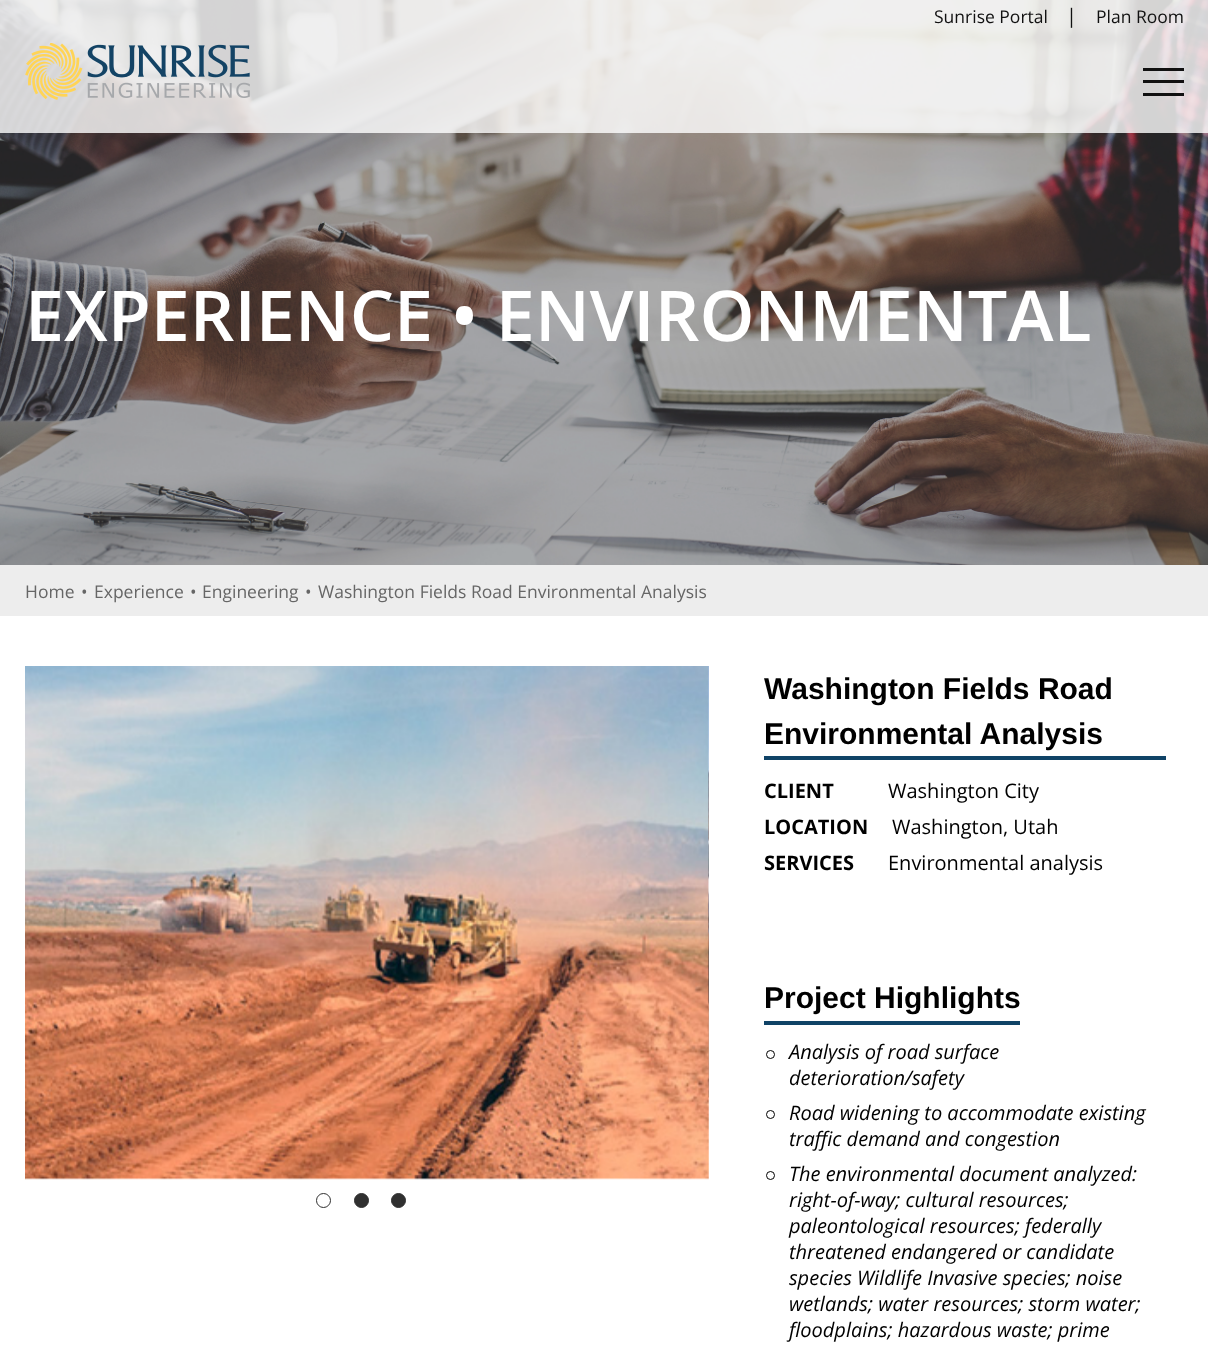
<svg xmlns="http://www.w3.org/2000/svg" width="1208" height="1359">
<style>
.a{font:17.5px Open Sans;fill:#111}
.b{font:20px Open Sans;fill:#111}
.c{font:600 70px Open Sans;fill:#fff}
.d{font:17.5px Open Sans;fill:#666}
.e{font:bold 30px Liberation Sans;fill:#000}
.f{font:bold 20px Open Sans;fill:#000}
.g{font:20px Open Sans;fill:#000}
.h{font:italic 20px Open Sans;fill:#000}
</style>
<rect width="100%" height="100%" fill="#fff"/>
<image href="2.png" x="0" y="0" width="1208" height="565"/>
<path fill="#ffffffcc" d="M0 0h1208v133H0z"/>
<image href="1.png" x="25" y="43" width="225" height="57"/>
<path fill="#111" d="M1143 68h41v3H1143z"/>
<path fill="#111" d="M1143 80h41v3H1143z"/>
<path fill="#111" d="M1143 93h41v3H1143z"/>
<path fill="#ededed" d="M0 565h1208v51H0z"/>
<image href="5.png" x="25" y="1178" width="1" height="2"/>
<image href="3.png" x="25" y="666" width="684" height="514"/>
<image href="4.png" x="708" y="666" width="1" height="432"/>
<circle fill="none" stroke="#303030" cx="323.5" cy="1200.5" r="7"/>
<circle fill="#303030" stroke="#303030" cx="361.5" cy="1200.5" r="7"/>
<circle fill="#303030" stroke="#303030" cx="398.5" cy="1200.5" r="7"/>
<path fill="#0f4366" d="M764 756h402v4H764z"/>
<path fill="#0f4366" d="M764 1021h256v4H764z"/>
<circle fill="none" stroke="#000" cx="770.5" cy="1054.5" r="4"/>
<circle fill="none" stroke="#000" cx="770.5" cy="1114.5" r="4"/>
<circle fill="none" stroke="#000" cx="770.5" cy="1175.5" r="4"/>
<text class="a" x="934" y="23">Sunrise Portal</text>
<text class="b" x="1066" y="23">|</text>
<text class="a" x="1096" y="23">Plan Room</text>
<text class="c" x="25" y="341">EXPERIENCE • ENVIRONMENTAL</text>
<text class="d" x="25" y="598">Home</text>
<text class="d" x="81" y="598">•</text>
<text class="d" x="94" y="598">Experience</text>
<text class="d" x="190" y="598">•</text>
<text class="d" x="202" y="598">Engineering</text>
<text class="d" x="305" y="598">•</text>
<text class="d" x="318" y="598">Washington Fields Road Environmental Analysis</text>
<text class="e" x="764" y="699">Washington Fields Road</text>
<text class="e" x="764" y="744">Environmental Analysis</text>
<text class="f" x="764" y="798">CLIENT</text>
<text class="g" x="888" y="798">Washington City</text>
<text class="f" x="764" y="834">LOCATION</text>
<text class="g" x="892" y="834">Washington, Utah</text>
<text class="f" x="764" y="870">SERVICES</text>
<text class="g" x="888" y="870">Environmental analysis</text>
<text class="e" x="764" y="1008">Project Highlights</text>
<text class="h" x="789" y="1059">Analysis of road surface</text>
<text class="h" x="789" y="1085">deterioration/safety</text>
<text class="h" x="789" y="1120">Road widening to accommodate existing</text>
<text class="h" x="789" y="1146">traffic demand and congestion</text>
<text class="h" x="789" y="1181">The environmental document analyzed:</text>
<text class="h" x="789" y="1207">right-of-way; cultural resources;</text>
<text class="h" x="789" y="1233">paleontological resources; federally</text>
<text class="h" x="789" y="1259">threatened endangered or candidate</text>
<text class="h" x="789" y="1285">species Wildlife Invasive species; noise</text>
<text class="h" x="789" y="1311">wetlands; water resources; storm water;</text>
<text class="h" x="789" y="1337">floodplains; hazardous waste; prime</text>
</svg>
